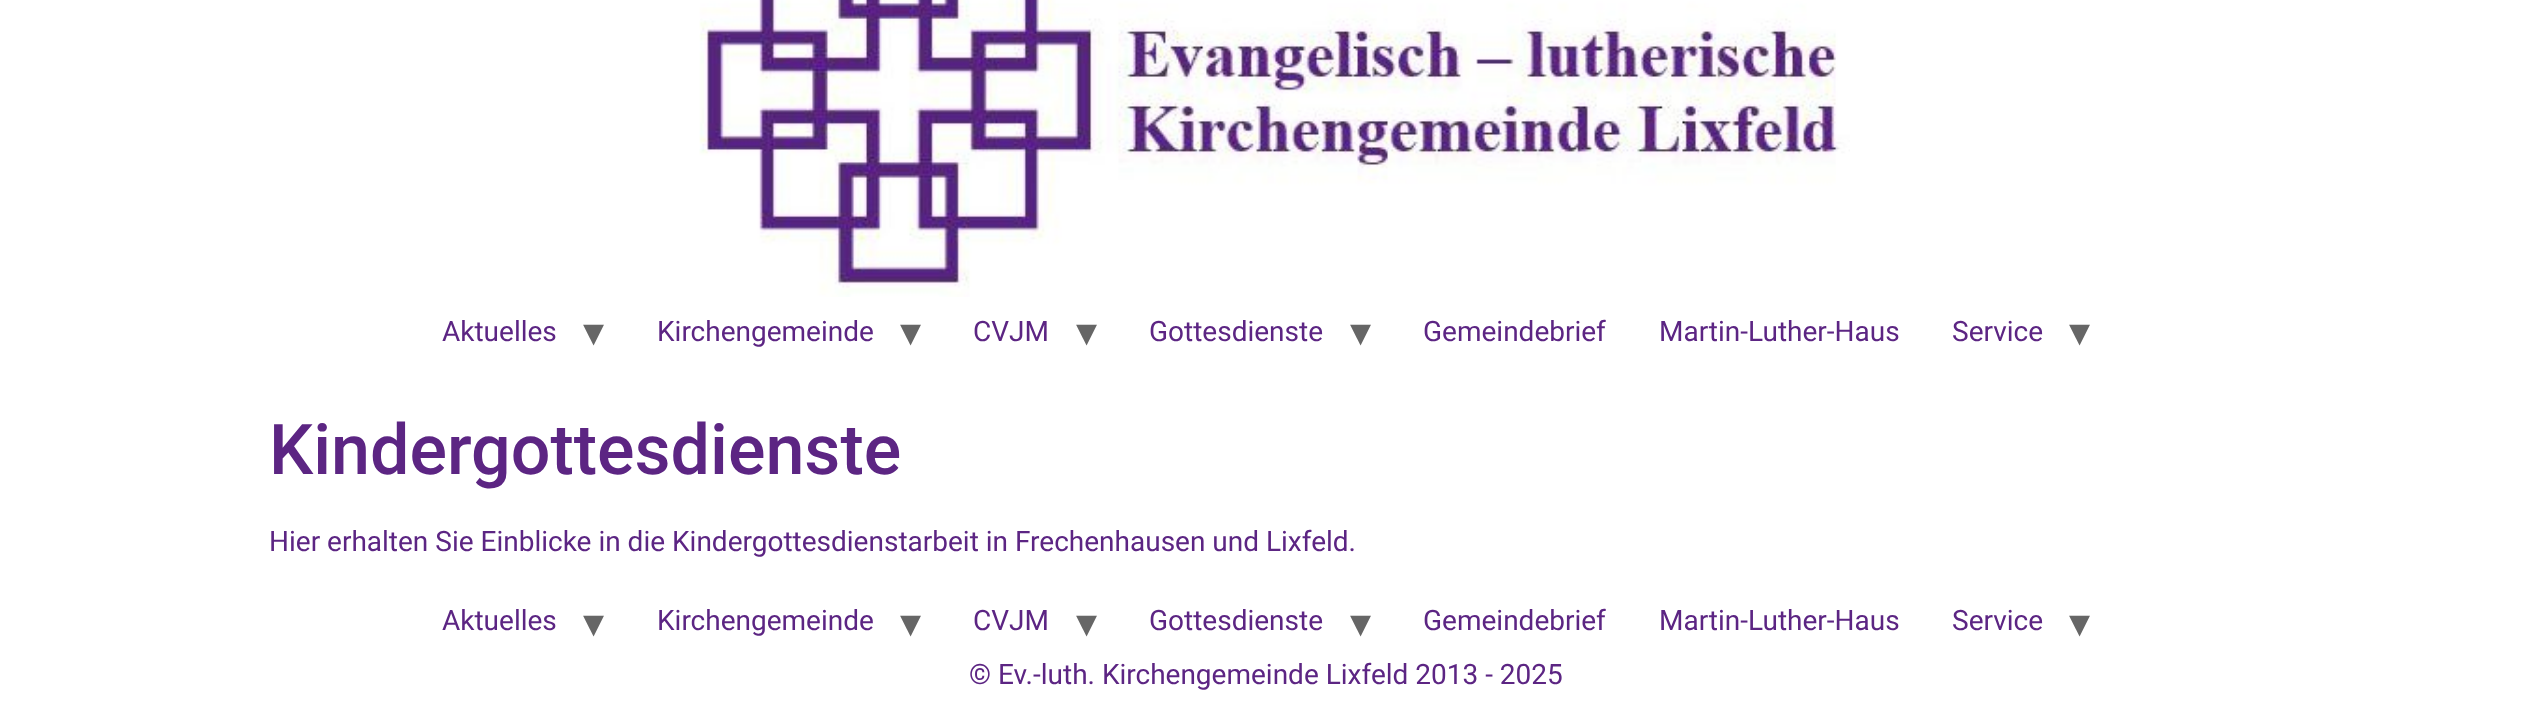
<svg xmlns="http://www.w3.org/2000/svg" width="2531" height="723">
<style>
.a{font:28px Roboto;fill:#5c2583}
.b{font:42px DejaVu Sans;fill:#666}
.c{font:500 70px Roboto;fill:#5c2583}
</style>
<rect width="100%" height="100%" fill="#fff"/>
<image href="1.png" x="699" y="0" width="1151" height="297"/>
<text class="a" x="442" y="341">Aktuelles</text>
<text class="b" x="583" y="346">▾</text>
<text class="a" x="657" y="341">Kirchengemeinde</text>
<text class="b" x="900" y="346">▾</text>
<text class="a" x="973" y="341">CVJM</text>
<text class="b" x="1076" y="346">▾</text>
<text class="a" x="1149" y="341">Gottesdienste</text>
<text class="b" x="1350" y="346">▾</text>
<text class="a" x="1423" y="341">Gemeindebrief</text>
<text class="a" x="1659" y="341">Martin-Luther-Haus</text>
<text class="a" x="1952" y="341">Service</text>
<text class="b" x="2069" y="346">▾</text>
<text class="c" x="269" y="474">Kindergottesdienste</text>
<text class="a" x="269" y="551">Hier erhalten Sie Einblicke in die Kindergottesdienstarbeit in Frechenhausen und Lixfeld.</text>
<text class="a" x="442" y="630">Aktuelles</text>
<text class="b" x="583" y="637">▾</text>
<text class="a" x="657" y="630">Kirchengemeinde</text>
<text class="b" x="900" y="637">▾</text>
<text class="a" x="973" y="630">CVJM</text>
<text class="b" x="1076" y="637">▾</text>
<text class="a" x="1149" y="630">Gottesdienste</text>
<text class="b" x="1350" y="637">▾</text>
<text class="a" x="1423" y="630">Gemeindebrief</text>
<text class="a" x="1659" y="630">Martin-Luther-Haus</text>
<text class="a" x="1952" y="630">Service</text>
<text class="b" x="2069" y="637">▾</text>
<text class="a" x="969" y="684">© Ev.-luth. Kirchengemeinde Lixfeld 2013 - 2025</text>
</svg>
